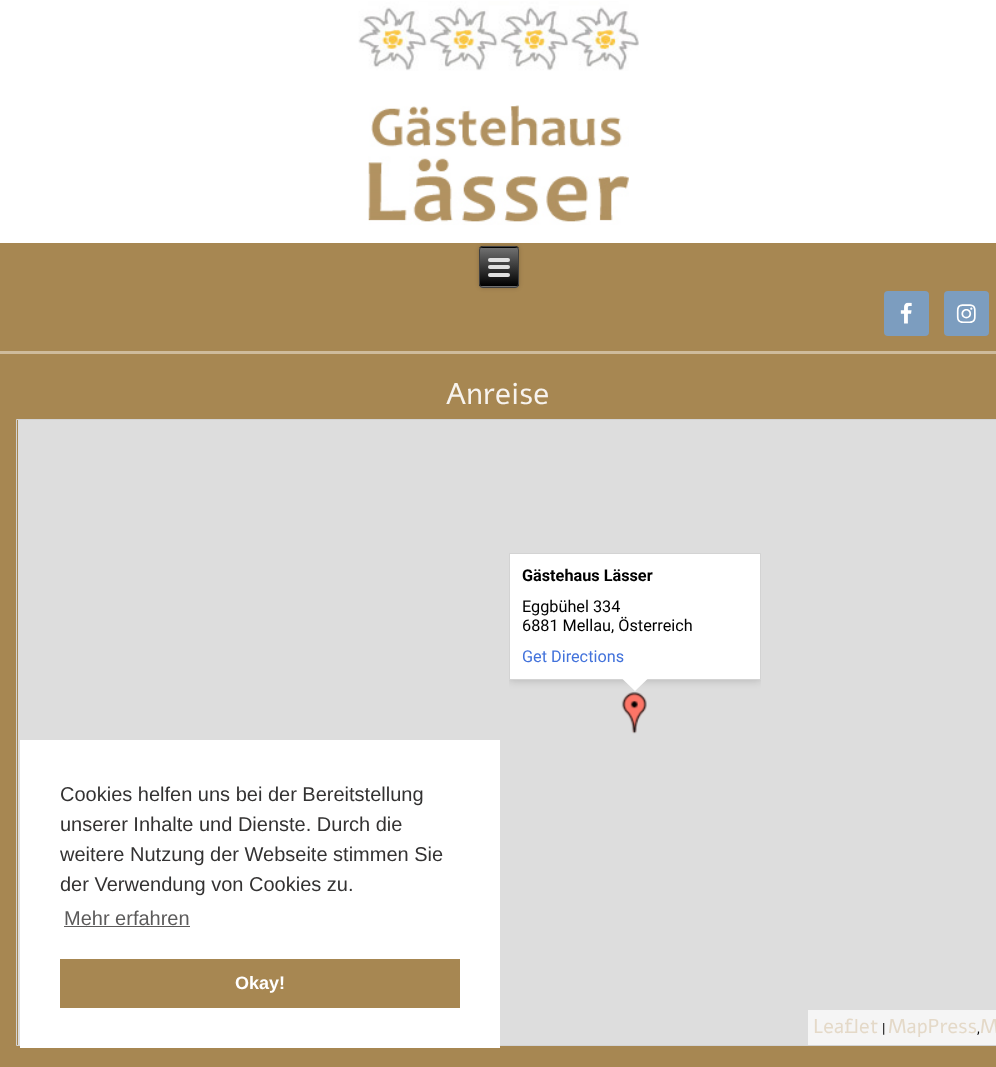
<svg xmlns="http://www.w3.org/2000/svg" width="996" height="1067">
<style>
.a{font:20px Liberation Sans;fill:#333232}
.b{font:20px Liberation Sans;fill:#5c5b5b}
.c{font:bold 18px Liberation Sans;fill:#fff}
.d{font:30px Alef;fill:#f7f3ee}
.e{font:bold 16.25px Roboto;fill:#000}
.f{font:16.25px Roboto;fill:#000}
.g{font:16.25px Roboto;fill:#4272db}
.h{font:20px Alef;fill:#e4d9c8}
.i{font:14px Roboto;fill:#000}
</style>
<defs>
<clipPath id="clip1"><rect x="479" y="246" width="40" height="42" rx="4"/></clipPath>
<linearGradient id="g1" gradientUnits="userSpaceOnUse" x1="499" y1="209" x2="499" y2="248"><stop offset="0" stop-color="#707070"/><stop offset="1" stop-color="#000"/></linearGradient>
<linearGradient id="g2" gradientUnits="userSpaceOnUse" x1="499" y1="248" x2="499" y2="286"><stop offset="0" stop-color="#707070"/><stop offset="1" stop-color="#000"/></linearGradient>
<linearGradient id="g3" gradientUnits="userSpaceOnUse" x1="499" y1="286" x2="499" y2="325"><stop offset="0" stop-color="#707070"/><stop offset="1" stop-color="#000"/></linearGradient>
<clipPath id="clip2"><path d="M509 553h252v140H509z"/></clipPath>
</defs>
<rect width="100%" height="100%" fill="#a78752"/>
<path fill="none" stroke="#d3d3d3" d="M16.5 419.5h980v626H16.5z"/>
<path fill="#ddd" d="M18 420h978v625H18z"/>
<path fill="#fff" d="M20 740h480v308H20z"/>
<path fill="#5c5b5b" d="M64 926h126v1H64z"/>
<path fill="#a78752" d="M60 959h400v49H60z"/>
<path fill="#fff" d="M0 0h996v243H0z"/>
<image href="1.png" x="358" y="1" width="281" height="70"/>
<image href="2.png" x="368" y="105" width="261" height="120"/>
<path fill="#cebb9c" d="M0 351h996v3H0z"/>
<rect fill="#00000033" filter="blur(2px)" x="479" y="246" width="40" height="42" rx="4"/>
<g clip-path="url(#clip1)">
<path fill="url(#g1)" d="M479 246h40v2H479z"/>
<path fill="url(#g2)" d="M479 248h40v38H479z"/>
<path fill="url(#g3)" d="M479 286h40v2H479z"/>
</g>
<rect fill="none" stroke="#404040" x="479.5" y="246.5" width="39" height="41" rx="3.5"/>
<rect fill="#e0e0e0" x="488" y="258" width="22" height="4" rx="2"/>
<rect fill="#e0e0e0" x="488" y="265" width="22" height="4" rx="2"/>
<rect fill="#e0e0e0" x="488" y="273" width="22" height="4" rx="2"/>
<rect fill="#7c9dbf" x="884" y="291" width="45" height="45" rx="4"/>
<image href="3.png" x="900" y="302" width="12" height="22"/>
<rect fill="#7c9dbf" x="944" y="291" width="45" height="45" rx="4"/>
<image href="4.png" x="956" y="304" width="20" height="19"/>
<image href="5.png" x="621" y="692" width="26" height="42"/>
<g clip-path="url(#clip2)">
<path fill="#00000033" filter="blur(4.5px)" d="M509 553h252v127H509z"/>
</g>
<path fill="#fff" stroke="#d3d3d3" d="M509.5 553.5h251v126H509.5z"/>
<path fill="#fff" d="M622.5 679h25l-12.5 12z"/>
<path fill="#f5f5f5" d="M808 1010h188v35H808z"/>
<text class="a" x="60" y="801">Cookies helfen uns bei der Bereitstellung</text>
<text class="a" x="60" y="831">unserer Inhalte und Dienste. Durch die</text>
<text class="a" x="60" y="861">weitere Nutzung der Webseite stimmen Sie</text>
<text class="a" x="60" y="891">der Verwendung von Cookies zu.</text>
<text class="b" x="64" y="925">Mehr erfahren</text>
<text class="c" x="235" y="989">Okay!</text>
<text class="d" x="446" y="404">Anreise</text>
<text class="e" x="522" y="581">Gästehaus Lässer</text>
<text class="f" x="522" y="612">Eggbühel 334</text>
<text class="f" x="522" y="631">6881 Mellau, Österreich</text>
<text class="g" x="522" y="662">Get Directions</text>
<text class="h" x="813" y="1033">Leaflet</text>
<text class="i" x="882" y="1033">|</text>
<text class="h" x="888" y="1033">MapPress</text>
<text class="i" x="977" y="1033">,</text>
<text class="h" x="980" y="1033">M</text>
</svg>
